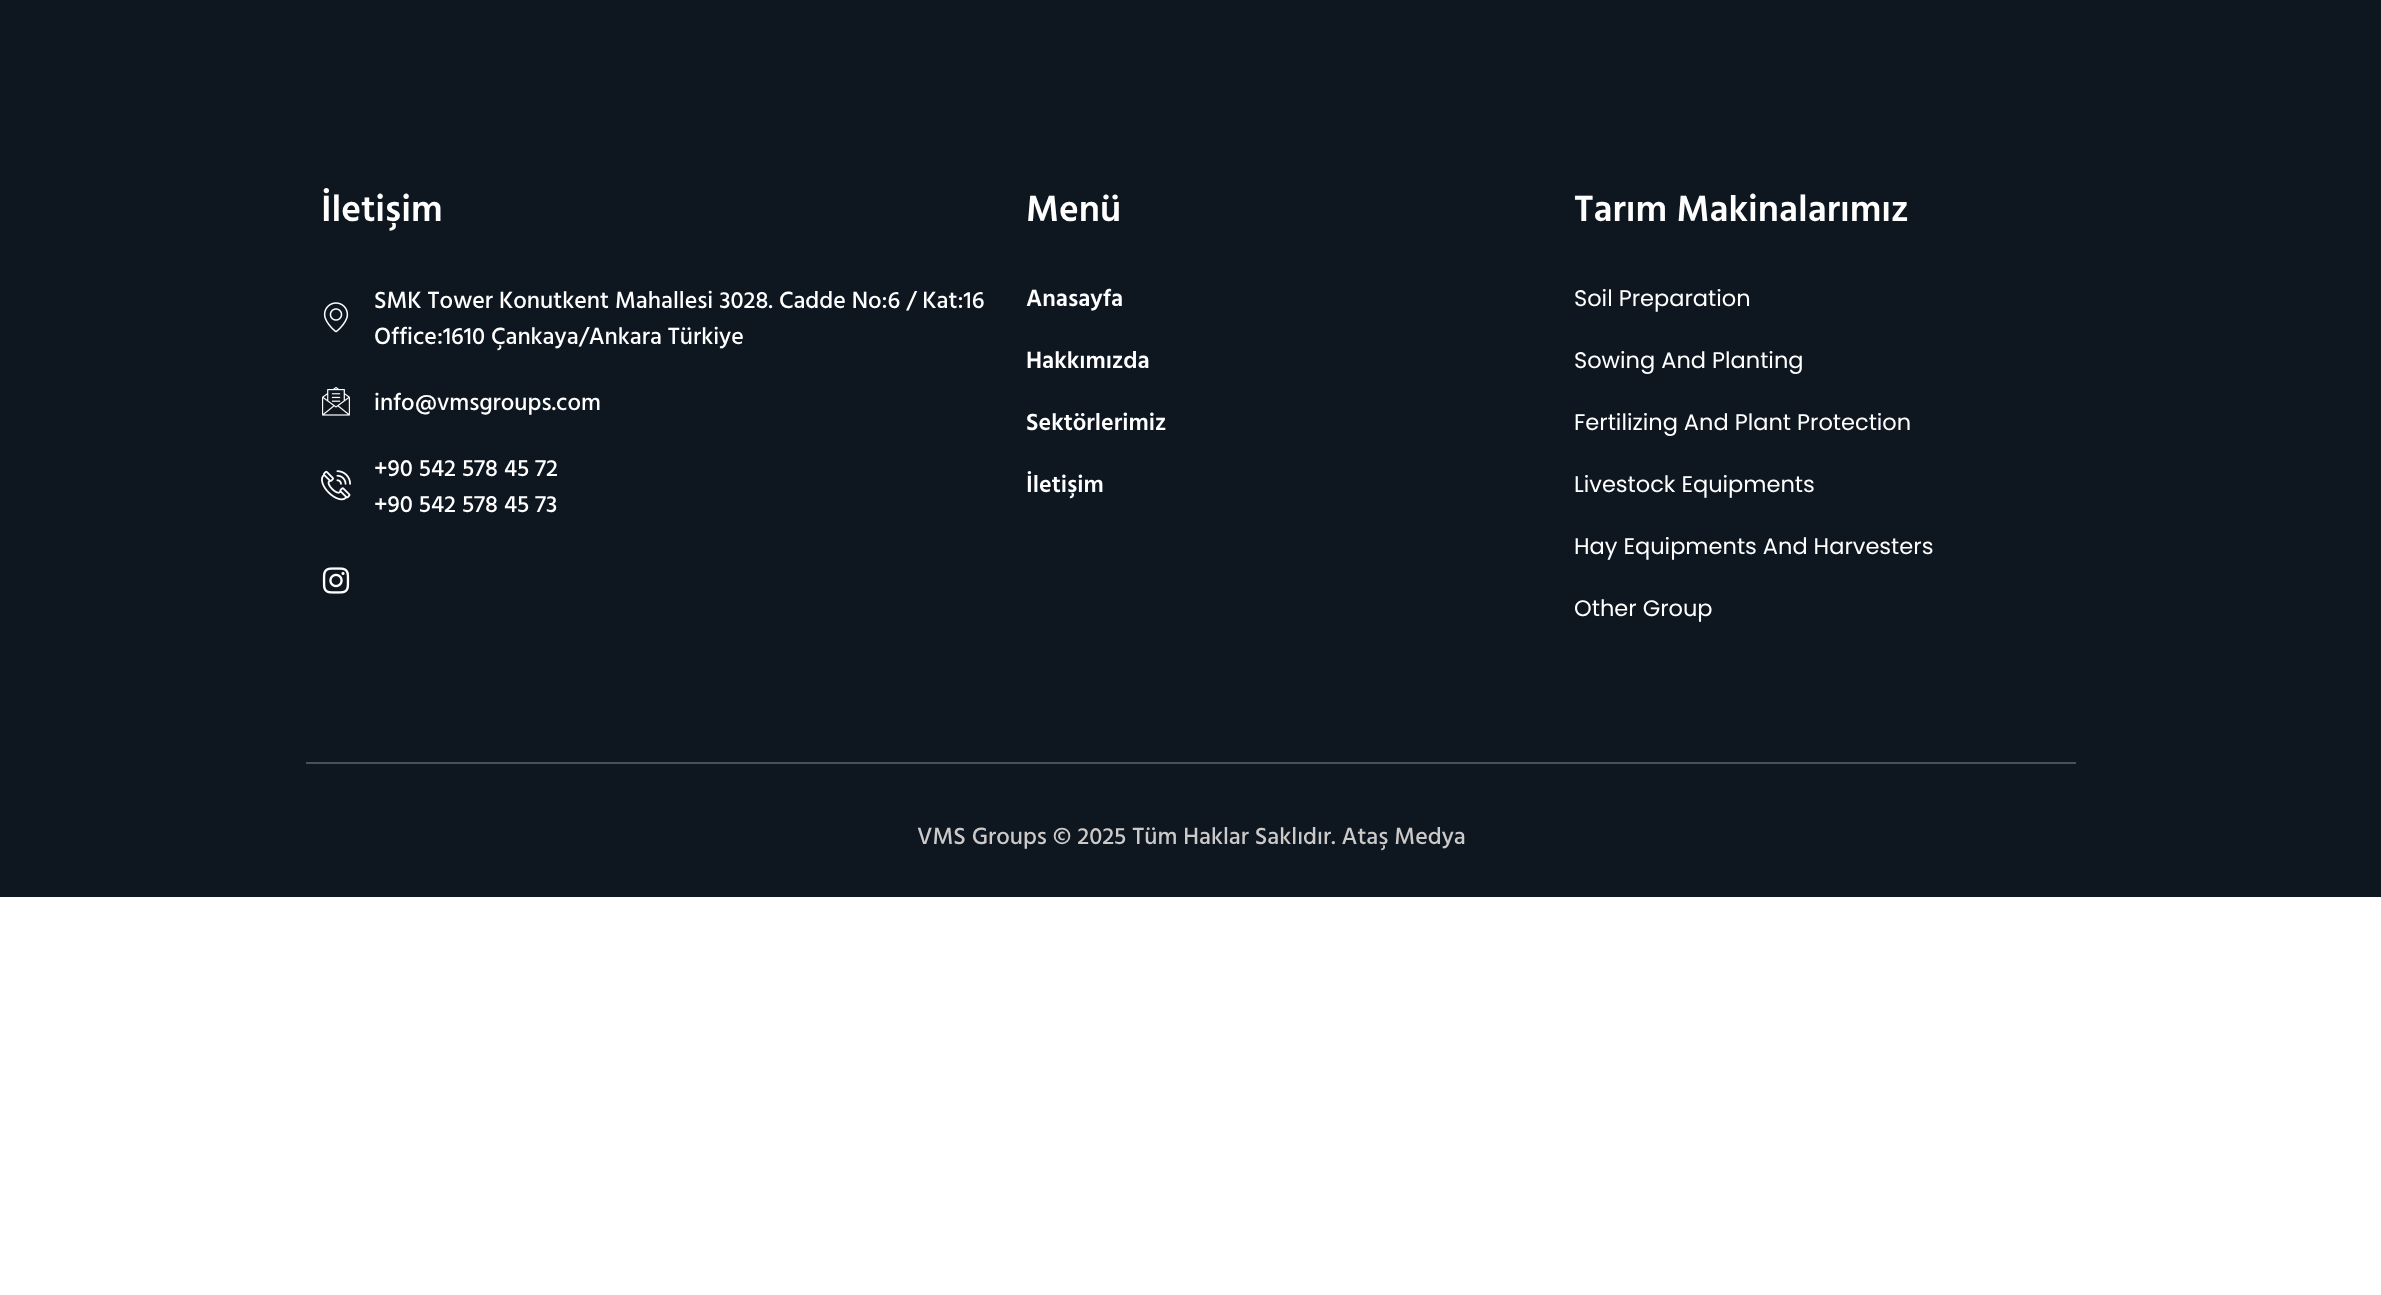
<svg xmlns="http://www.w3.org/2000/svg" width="2381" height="1295">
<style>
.a{font:600 37.5px Hind Vadodara;fill:#fff}
.b{font:500 24px Hind Vadodara;fill:#fff}
.c{font:600 24px Hind Vadodara;fill:#fff}
.d{font:22.5px Poppins;fill:#fff}
.e{font:500 24px Hind Vadodara;fill:#ccc9c9}
</style>
<rect width="100%" height="100%" fill="#fff"/>
<path fill="#0e1620" d="M0 0h2381v897H0z"/>
<image href="1.png" x="323" y="302" width="26" height="31"/>
<image href="2.png" x="322" y="387" width="28" height="29"/>
<image href="3.png" x="321" y="470" width="30" height="31"/>
<image href="4.png" x="322" y="567" width="28" height="27"/>
<path fill="#47505f" d="M306 762h1770v2H306z"/>
<text class="a" x="321" y="221">İletişim</text>
<text class="b" x="374" y="308">SMK Tower Konutkent Mahallesi 3028. Cadde No:6 / Kat:16</text>
<text class="b" x="374" y="344">Office:1610 Çankaya/Ankara Türkiye</text>
<text class="b" x="374" y="410">info@vmsgroups.com</text>
<text class="b" x="374" y="476">+90 542 578 45 72</text>
<text class="b" x="374" y="512">+90 542 578 45 73</text>
<text class="a" x="1026" y="221">Menü</text>
<text class="c" x="1026" y="306">Anasayfa</text>
<text class="c" x="1026" y="368">Hakkımızda</text>
<text class="c" x="1026" y="430">Sektörlerimiz</text>
<text class="c" x="1026" y="492">İletişim</text>
<text class="a" x="1574" y="221">Tarım Makinalarımız</text>
<text class="d" x="1574" y="306">Soil Preparation</text>
<text class="d" x="1574" y="368">Sowing And Planting</text>
<text class="d" x="1574" y="430">Fertilizing And Plant Protection</text>
<text class="d" x="1574" y="492">Livestock Equipments</text>
<text class="d" x="1574" y="554">Hay Equipments And Harvesters</text>
<text class="d" x="1574" y="616">Other Group</text>
<text class="e" x="917" y="844">VMS Groups © 2025 Tüm Haklar Saklıdır. Ataş Medya</text>
</svg>
